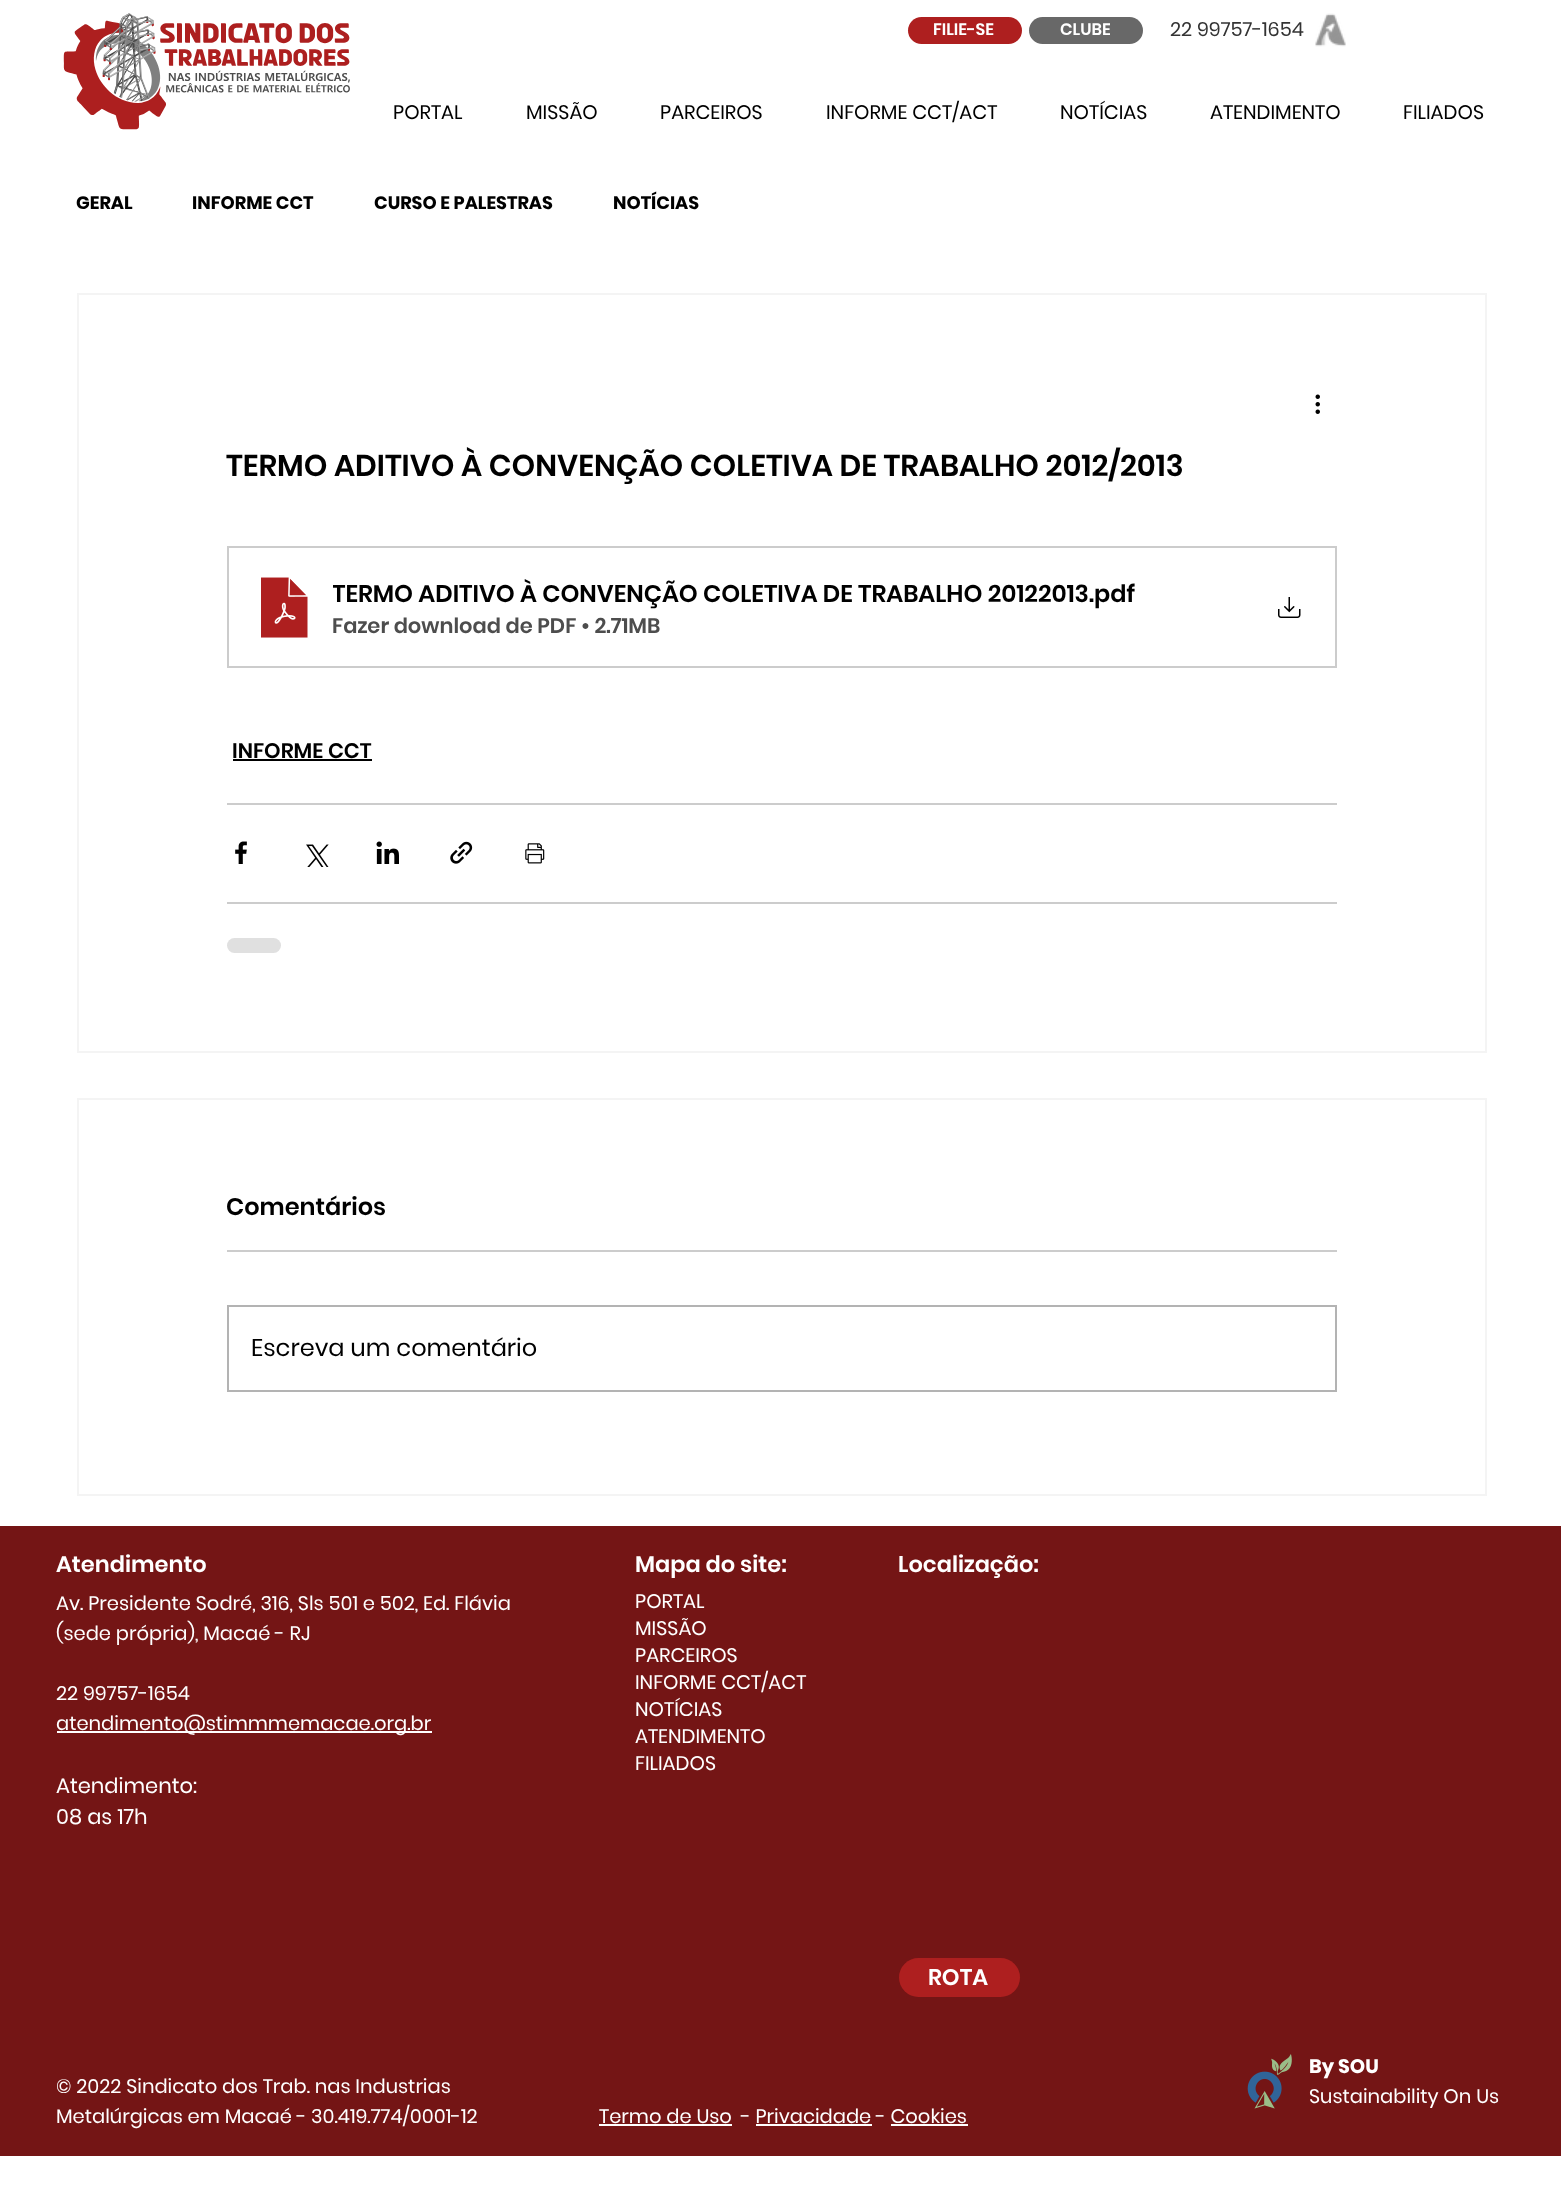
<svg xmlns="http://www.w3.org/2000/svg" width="1561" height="2212">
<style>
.a{font:600 16.5px Poppins;fill:#fff}
.b{font:19.5px Poppins;fill:#333}
.c{font:19.5px Poppins;fill:#000}
.d{font:bold 18px Poppins;fill:#000}
.e{font:600 30px Poppins;fill:#000}
.f{font:600 24px Poppins;fill:#000}
.g{font:600 21px Poppins;fill:#4d4d4d}
.h{font:600 21px Poppins;fill:#000}
.i{font:24px Poppins;fill:#000}
.j{font:600 22.5px Poppins;fill:#fff}
.k{font:19.5px Poppins;fill:#fff}
.l{font:21px Poppins;fill:#fff}
.m{font:bold 19.5px Poppins;fill:#fff}
</style>
<defs>
<clipPath id="clip1"><path d="M333 575h756v37H333z"/></clipPath>
</defs>
<rect width="100%" height="100%" fill="#fff"/>
<image href="1.png" x="63" y="13" width="287" height="117"/>
<rect fill="#ae1f1f" x="908" y="17" width="114" height="27" rx="13.5"/>
<rect fill="#686868" x="1029" y="17" width="114" height="27" rx="13.5"/>
<image href="2.png" x="1315" y="13" width="31" height="34"/>
<path fill="none" stroke="#f4f4f4" stroke-width="2" d="M78 294h1408v758H78z"/>
<image href="3.png" x="1315" y="394" width="5" height="20"/>
<path fill="none" stroke="#ccc" stroke-width="2" d="M228 547h1108v120H228z"/>
<image href="4.png" x="261" y="577" width="48" height="62"/>
<image href="5.png" x="1278" y="597" width="23" height="21"/>
<path fill="#000" d="M233 759h139v2H233z"/>
<path fill="#ccc" d="M227 803h1110v2H227z"/>
<image href="6.png" x="235" y="841" width="12" height="23"/>
<image href="7.png" x="306" y="844" width="23" height="23"/>
<image href="8.png" x="376" y="841" width="23" height="23"/>
<image href="9.png" x="450" y="841" width="23" height="23"/>
<image href="10.png" x="525" y="843" width="20" height="21"/>
<path fill="#ccc" d="M227 902h1110v2H227z"/>
<rect fill="#e0e0e0" x="227" y="938" width="54" height="15" rx="7.5"/>
<path fill="none" stroke="#f4f4f4" stroke-width="2" d="M78 1099h1408v396H78z"/>
<path fill="#ccc" d="M227 1250h1110v2H227z"/>
<path fill="none" stroke="#b3b3b3" stroke-width="2" d="M228 1306h1108v85H228z"/>
<path fill="#741515" d="M0 1526h1561v630H0z"/>
<path fill="#fff" d="M57 1731h375v2H57z"/>
<rect fill="#ae1f1f" x="899" y="1958" width="121" height="39" rx="19.5"/>
<path fill="#fff" d="M599 2124h133v2H599z"/>
<path fill="#fff" d="M756 2124h116v2H756z"/>
<path fill="#fff" d="M891 2124h77v2H891z"/>
<image href="11.png" x="1247" y="2054" width="45" height="55"/>
<text class="a" x="933" y="35">FILIE-SE</text>
<text class="a" x="1060" y="35">CLUBE</text>
<text class="b" x="1170" y="36">22 99757-1654</text>
<text class="c" x="393" y="119">PORTAL</text>
<text class="c" x="526" y="119">MISSÃO</text>
<text class="c" x="660" y="119">PARCEIROS</text>
<text class="c" x="826" y="119">INFORME CCT/ACT</text>
<text class="c" x="1060" y="119">NOTÍCIAS</text>
<text class="c" x="1210" y="119">ATENDIMENTO</text>
<text class="c" x="1403" y="119">FILIADOS</text>
<text class="d" x="76" y="209">GERAL</text>
<text class="d" x="192" y="209">INFORME CCT</text>
<text class="d" x="374" y="209">CURSO E PALESTRAS</text>
<text class="d" x="613" y="209">NOTÍCIAS</text>
<text class="e" x="226" y="476">TERMO ADITIVO À CONVENÇÃO COLETIVA DE TRABALHO 2012/2013</text>
<g clip-path="url(#clip1)">
<text class="f" x="332" y="602">TERMO ADITIVO À CONVENÇÃO COLETIVA DE TRABALHO 20122013</text>
</g>
<text class="f" x="1089" y="602">.pdf</text>
<text class="g" x="332" y="633">Fazer download de PDF • 2.71MB</text>
<text class="h" x="232" y="758">INFORME CCT</text>
<text class="f" x="226" y="1215">Comentários</text>
<text class="i" x="251" y="1356">Escreva um comentário</text>
<text class="j" x="56" y="1572">Atendimento</text>
<text class="j" x="635" y="1572">Mapa do site:</text>
<text class="j" x="898" y="1572">Localização:</text>
<text class="k" x="56" y="1610">Av. Presidente Sodré, 316, Sls 501 e 502, Ed. Flávia</text>
<text class="k" x="56" y="1640">(sede própria), Macaé - RJ</text>
<text class="k" x="56" y="1700">22 99757-1654</text>
<text class="k" x="56" y="1730">atendimento@stimmmemacae.org.br</text>
<text class="l" x="56" y="1793">Atendimento:</text>
<text class="l" x="56" y="1824">08 as 17h</text>
<text class="k" x="635" y="1608">PORTAL</text>
<text class="k" x="635" y="1635">MISSÃO</text>
<text class="k" x="635" y="1662">PARCEIROS</text>
<text class="k" x="635" y="1689">INFORME CCT/ACT</text>
<text class="k" x="635" y="1716">NOTÍCIAS</text>
<text class="k" x="635" y="1743">ATENDIMENTO</text>
<text class="k" x="635" y="1770">FILIADOS</text>
<text class="j" x="928" y="1985">ROTA</text>
<text class="k" x="56" y="2093">© 2022 Sindicato dos Trab. nas Industrias</text>
<text class="k" x="56" y="2123">Metalúrgicas em Macaé - 30.419.774/0001-12</text>
<text class="k" x="599" y="2123">Termo de Uso</text>
<text class="k" x="741" y="2123">- Privacidade - Cookies</text>
<text class="m" x="1309" y="2073">By SOU</text>
<text class="k" x="1309" y="2103">Sustainability On Us</text>
</svg>
